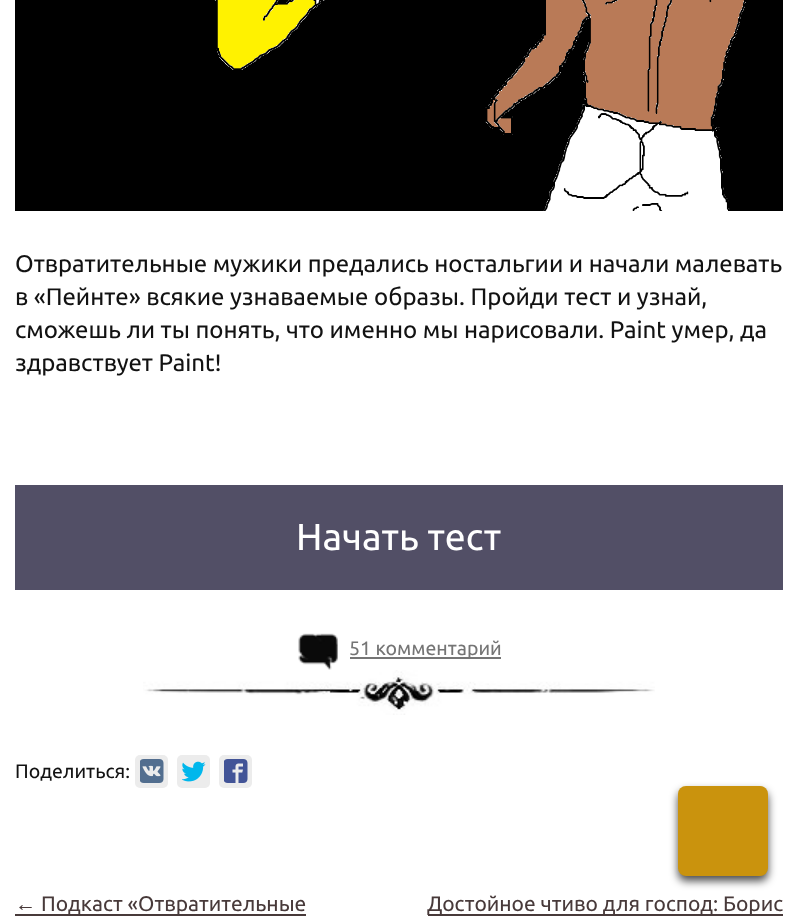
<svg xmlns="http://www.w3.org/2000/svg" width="797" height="921">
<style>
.a{font:24px Ubuntu;fill:#121212}
.b{font:37.5px Ubuntu;fill:#fff}
.c{font:19.5px Ubuntu;fill:#757575}
.d{font:19.5px Ubuntu;fill:#121212}
.e{font:21px Liberation Sans;fill:#483a3a}
.f{font:21px Ubuntu;fill:#483a3a}
</style>
<rect width="100%" height="100%" fill="#fff"/>
<image href="1.png" x="15" y="0" width="768" height="211"/>
<path fill="#524f66" d="M15 485h768v105H15z"/>
<image href="2.png" x="143" y="670" width="512" height="45"/>
<image href="3.png" x="298" y="633" width="40" height="37"/>
<path fill="#757575" d="M350 657h151v2H350z"/>
<rect fill="#000000b3" filter="blur(4px)" x="678" y="791" width="90" height="90" rx="8"/>
<rect fill="#ca930d" x="678" y="786" width="90" height="90" rx="8"/>
<rect fill="#ececec" x="135" y="755" width="33" height="33" rx="5"/>
<image href="4.png" x="140" y="759" width="24" height="24"/>
<rect fill="#ececec" x="177" y="755" width="33" height="33" rx="5"/>
<image href="5.png" x="182" y="761" width="24" height="21"/>
<rect fill="#ececec" x="219" y="755" width="33" height="33" rx="5"/>
<image href="6.png" x="224" y="759" width="24" height="24"/>
<path fill="#483a3a" d="M15 914h291v2H15z"/>
<path fill="#483a3a" d="M428 914h355v2H428z"/>
<text class="a" x="15" y="272">Отвратительные мужики предались ностальгии и начали малевать</text>
<text class="a" x="15" y="305">в «Пейнте» всякие узнаваемые образы. Пройди тест и узнай,</text>
<text class="a" x="15" y="338">сможешь ли ты понять, что именно мы нарисовали. Paint умер, да</text>
<text class="a" x="15" y="371">здравствует Paint!</text>
<text class="b" x="296" y="550">Начать тест</text>
<text class="c" x="349" y="655">51 комментарий</text>
<text class="d" x="15" y="778">Поделиться:</text>
<text class="e" x="15" y="911">←</text>
<text class="f" x="41" y="911">Подкаст «Отвратительные</text>
<text class="f" x="427" y="911">Достойное чтиво для господ: Борис</text>
</svg>
